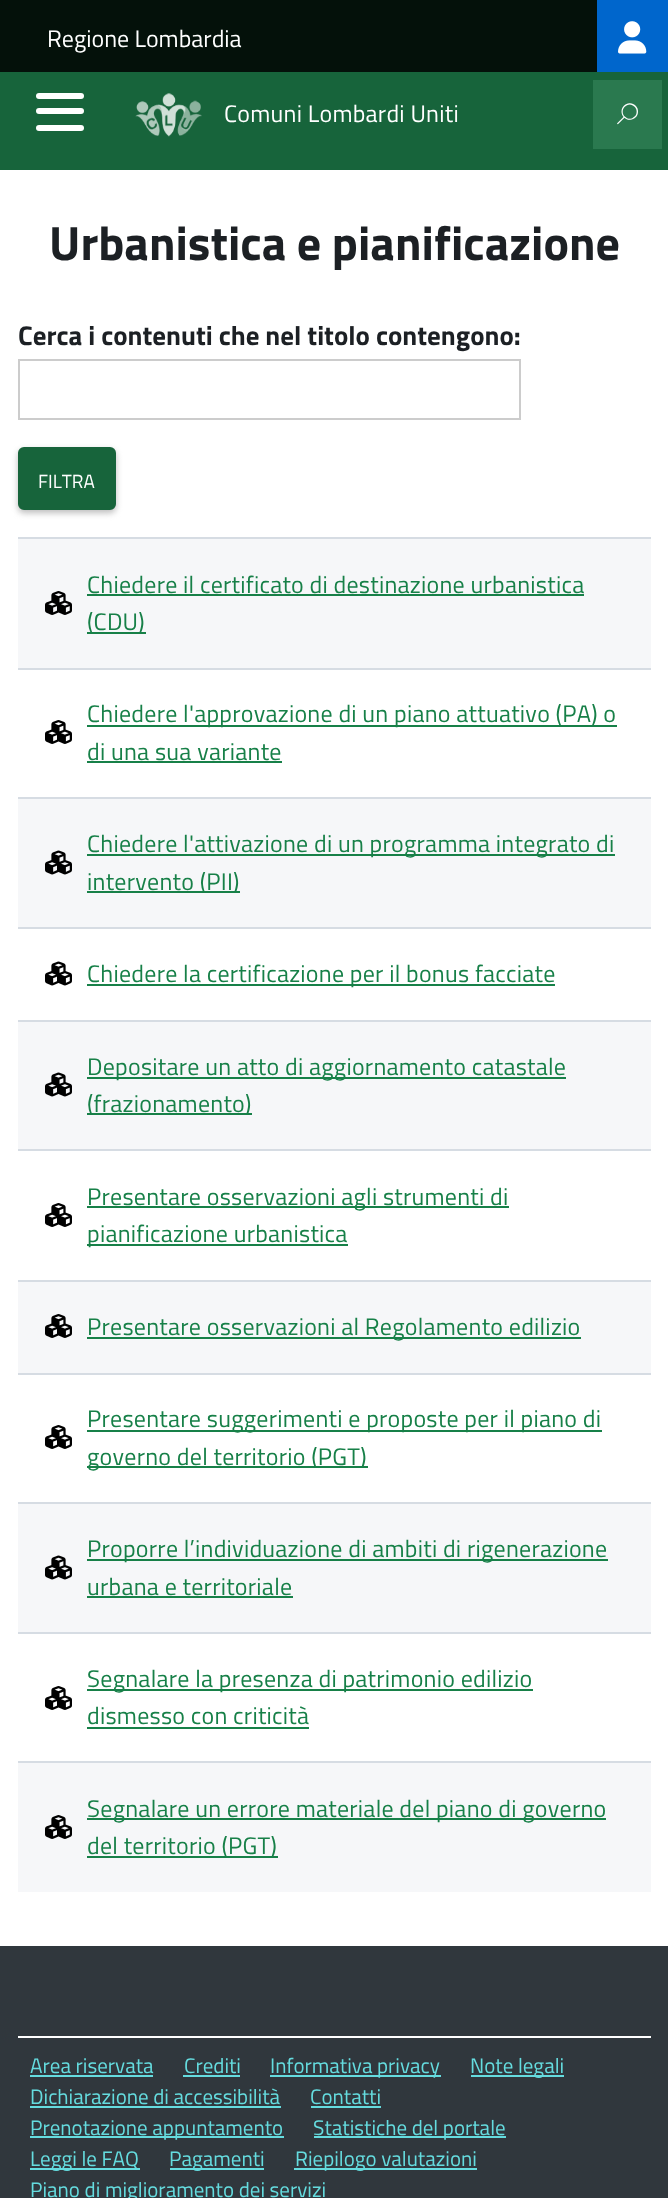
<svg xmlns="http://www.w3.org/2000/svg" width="668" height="2198">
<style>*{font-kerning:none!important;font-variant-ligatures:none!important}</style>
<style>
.a{font:24px Titillium Web;fill:#fff}
.b{font:24px Titillium Web;letter-spacing:0.25px;fill:#fff}
.c{font:21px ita;fill:#fff}
.d{font:bold 48px Titillium Web;fill:#1c2024}
.e{font:bold 27px Titillium Web;fill:#1c2024}
.f{font:19px Titillium Web;fill:#fff}
.g{font:24px Titillium Web;letter-spacing:0.25px;fill:#178048}
.h{font:21px Titillium Web;fill:#65dcdf}
</style>
<rect width="100%" height="100%" fill="#fff"/>
<path fill="#04110a" d="M0 0h597v72H0z"/>
<path fill="#06c" d="M597 0h71v72H597z"/>
<image href="1.png" x="618" y="21" width="29" height="33"/>
<path fill="#17643b" d="M0 72h668v98H0z"/>
<rect fill="#fff" x="36" y="108" width="48" height="6" rx="3"/>
<rect fill="#fff" x="36" y="93" width="48" height="6" rx="3"/>
<rect fill="#fff" x="36" y="125" width="48" height="6" rx="3"/>
<image href="2.png" x="135" y="93" width="67" height="44"/>
<path fill="#2a794f" d="M593 80h69v69H593z"/>
<path fill="none" stroke="#ccc" stroke-width="2" d="M19 360h501v59H19z"/>
<rect fill="#bdbdbd" filter="blur(3px)" x="18" y="450" width="98" height="63" rx="6"/>
<rect fill="#17643b" stroke="#17643b" stroke-width="2" x="19" y="448" width="96" height="61" rx="5"/>
<path fill="#f6f7f9" d="M18 539h633v129H18z"/>
<path fill="#d6dce3" d="M18 537h633v2H18z"/>
<image href="3.png" x="45" y="591" width="27" height="24"/>
<path fill="#178048" d="M87 594h497v2H87z"/>
<path fill="#178048" d="M87 632h59v2H87z"/>
<path fill="#d6dce3" d="M18 668h633v2H18z"/>
<image href="4.png" x="45" y="720" width="27" height="24"/>
<path fill="#178048" d="M87 725h530v2H87z"/>
<path fill="#178048" d="M87 761h195v2H87z"/>
<path fill="#f6f7f9" d="M18 799h633v128H18z"/>
<path fill="#d6dce3" d="M18 797h633v2H18z"/>
<image href="5.png" x="45" y="850" width="27" height="25"/>
<path fill="#178048" d="M87 854h528v2H87z"/>
<path fill="#178048" d="M87 891h153v2H87z"/>
<path fill="#d6dce3" d="M18 927h633v2H18z"/>
<image href="6.png" x="45" y="961" width="27" height="25"/>
<path fill="#178048" d="M87 984h468v2H87z"/>
<path fill="#f6f7f9" d="M18 1022h633v127H18z"/>
<path fill="#d6dce3" d="M18 1020h633v2H18z"/>
<image href="5.png" x="45" y="1072" width="27" height="25"/>
<path fill="#178048" d="M87 1077h479v2H87z"/>
<path fill="#178048" d="M87 1113h165v2H87z"/>
<path fill="#d6dce3" d="M18 1149h633v2H18z"/>
<image href="4.png" x="45" y="1203" width="27" height="24"/>
<path fill="#178048" d="M87 1206h422v2H87z"/>
<path fill="#178048" d="M87 1244h261v2H87z"/>
<path fill="#f6f7f9" d="M18 1282h633v91H18z"/>
<path fill="#d6dce3" d="M18 1280h633v2H18z"/>
<image href="3.png" x="45" y="1314" width="27" height="24"/>
<path fill="#178048" d="M87 1337h494v2H87z"/>
<path fill="#d6dce3" d="M18 1373h633v2H18z"/>
<image href="4.png" x="45" y="1425" width="27" height="24"/>
<path fill="#178048" d="M87 1430h515v2H87z"/>
<path fill="#178048" d="M87 1466h281v2H87z"/>
<path fill="#f6f7f9" d="M18 1504h633v128H18z"/>
<path fill="#d6dce3" d="M18 1502h633v2H18z"/>
<image href="5.png" x="45" y="1555" width="27" height="25"/>
<path fill="#178048" d="M87 1559h521v2H87z"/>
<path fill="#178048" d="M87 1596h206v2H87z"/>
<path fill="#d6dce3" d="M18 1632h633v2H18z"/>
<image href="4.png" x="45" y="1686" width="27" height="24"/>
<path fill="#178048" d="M87 1689h446v2H87z"/>
<path fill="#178048" d="M87 1727h222v2H87z"/>
<path fill="#f6f7f9" d="M18 1763h633v129H18z"/>
<path fill="#d6dce3" d="M18 1761h633v2H18z"/>
<image href="3.png" x="45" y="1815" width="27" height="24"/>
<path fill="#178048" d="M87 1818h519v2H87z"/>
<path fill="#178048" d="M87 1856h191v2H87z"/>
<path fill="#30373d" d="M0 1946h668v252H0z"/>
<path fill="#fff" d="M18 2036h633v2H18z"/>
<path fill="#65dcdf" d="M30 2075h123v2H30z"/>
<path fill="#65dcdf" d="M183 2075h57v2H183z"/>
<path fill="#65dcdf" d="M270 2075h171v2H270z"/>
<path fill="#65dcdf" d="M471 2075h93v2H471z"/>
<path fill="#65dcdf" d="M30 2106h251v2H30z"/>
<path fill="#65dcdf" d="M311 2106h70v2H311z"/>
<path fill="#65dcdf" d="M30 2136h254v2H30z"/>
<path fill="#65dcdf" d="M314 2136h192v2H314z"/>
<path fill="#65dcdf" d="M30 2168h110v2H30z"/>
<path fill="#65dcdf" d="M170 2168h94v2H170z"/>
<path fill="#65dcdf" d="M294 2168h183v2H294z"/>
<text class="a" x="47" y="47">Regione Lombardia</text>
<text class="b" x="224" y="122">Comuni Lombardi Uniti</text>
<text class="c" x="617" y="123">🔍</text>
<text class="d" x="49" y="260">Urbanistica e pianificazione</text>
<text class="e" x="18" y="345">Cerca i contenuti che nel titolo contengono:</text>
<text class="f" x="38" y="488">FILTRA</text>
<text class="g" x="87" y="593">Chiedere il certificato di destinazione urbanistica</text>
<text class="g" x="87" y="630">(CDU)</text>
<text class="g" x="87" y="722">Chiedere l'approvazione di un piano attuativo (PA) o</text>
<text class="g" x="87" y="760">di una sua variante</text>
<text class="g" x="87" y="852">Chiedere l'attivazione di un programma integrato di</text>
<text class="g" x="87" y="890">intervento (PII)</text>
<text class="g" x="87" y="982">Chiedere la certificazione per il bonus facciate</text>
<text class="g" x="87" y="1075">Depositare un atto di aggiornamento catastale</text>
<text class="g" x="87" y="1112">(frazionamento)</text>
<text class="g" x="87" y="1205">Presentare osservazioni agli strumenti di</text>
<text class="g" x="87" y="1242">pianificazione urbanistica</text>
<text class="g" x="87" y="1335">Presentare osservazioni al Regolamento edilizio</text>
<text class="g" x="87" y="1427">Presentare suggerimenti e proposte per il piano di</text>
<text class="g" x="87" y="1465">governo del territorio (PGT)</text>
<text class="g" x="87" y="1557">Proporre l’individuazione di ambiti di rigenerazione</text>
<text class="g" x="87" y="1595">urbana e territoriale</text>
<text class="g" x="87" y="1687">Segnalare la presenza di patrimonio edilizio</text>
<text class="g" x="87" y="1724">dismesso con criticità</text>
<text class="g" x="87" y="1817">Segnalare un errore materiale del piano di governo</text>
<text class="g" x="87" y="1854">del territorio (PGT)</text>
<text class="h" x="30" y="2073">Area riservata</text>
<text class="h" x="184" y="2073">Crediti</text>
<text class="h" x="270" y="2073">Informativa privacy</text>
<text class="h" x="470" y="2073">Note legali</text>
<text class="h" x="30" y="2104">Dichiarazione di accessibilità</text>
<text class="h" x="310" y="2104">Contatti</text>
<text class="h" x="30" y="2135">Prenotazione appuntamento</text>
<text class="h" x="313" y="2135">Statistiche del portale</text>
<text class="h" x="30" y="2166">Leggi le FAQ</text>
<text class="h" x="169" y="2166">Pagamenti</text>
<text class="h" x="295" y="2166">Riepilogo valutazioni</text>
<text class="h" x="30" y="2197">Piano di miglioramento dei servizi</text>
</svg>
